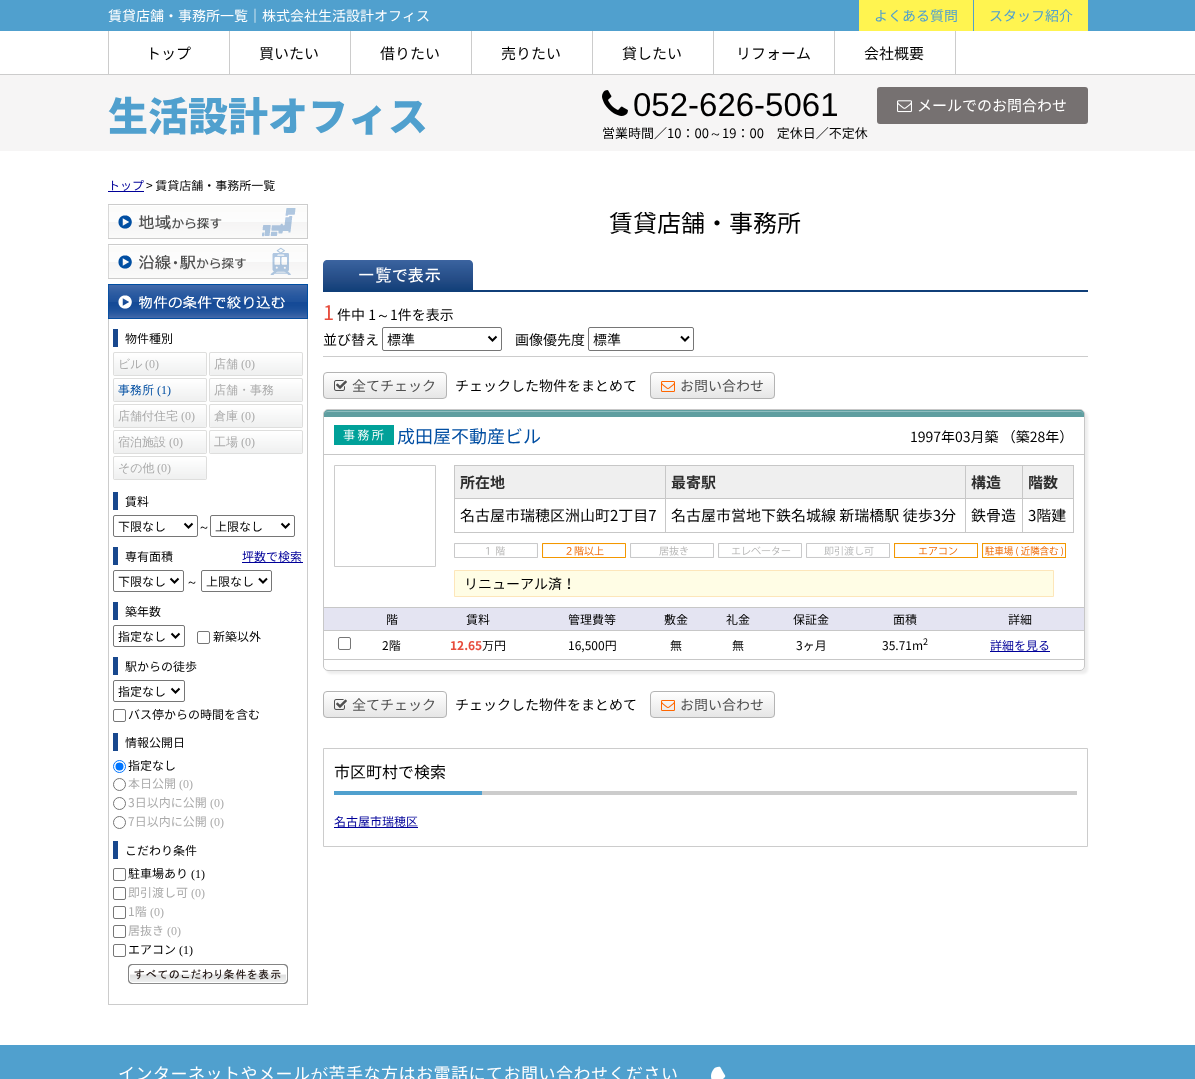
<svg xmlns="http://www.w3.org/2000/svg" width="1195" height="1079">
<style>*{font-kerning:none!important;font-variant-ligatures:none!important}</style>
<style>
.a{font:14px Noto Sans JP;fill:#fff}
.b{font:14px Noto Sans JP;fill:#50a0ce}
.c{font:15px Noto Sans JP;fill:#000}
.d{font:900 40px Noto Sans JP;fill:#50a0ce}
.e{font:33px Liberation Sans;fill:#000}
.f{font:13px Noto Sans JP;fill:#000}
.g{font:500 13px WenQuanYi Zen Hei;fill:#000}
.h{font:15px Noto Sans JP;fill:#fff}
.i{font:12px Noto Sans JP;fill:#009}
.j{font:12px Noto Sans JP;fill:#000}
.k{font:500 12px WenQuanYi Zen Hei;fill:#aaa}
.l{font:12px Liberation Serif;fill:#aaa}
.m{font:500 12px WenQuanYi Zen Hei;fill:#004ea2}
.n{font:12px Liberation Serif;fill:#004ea2}
.o{font:500 12px WenQuanYi Zen Hei;fill:#000}
.p{font:12px Noto Sans JP;fill:#aaa}
.q{font:12px Liberation Serif;fill:#000}
.r{font:24px Noto Sans JP;fill:#000}
.s{font:20px Noto Sans JP;fill:#e74c3c}
.t{font:14px Noto Sans JP;fill:#000}
.u{font:500 14px WenQuanYi Zen Hei;fill:#000}
.v{font:14px Noto Sans JP;fill:#505050}
.w{font:18px Noto Sans JP;fill:#004ea2}
.x{font:bold 15px Noto Sans JP;fill:#2d2d2d}
.y{font:bold 12px Noto Sans JP;fill:#e74c3c}
.z{font:9px Noto Sans JP;fill:#000}
.a1{font:16px Noto Sans JP;fill:#000}
.b1{font:17px Noto Sans JP;letter-spacing:0.5px;fill:#fff}
</style>
<defs>
<clipPath id="clip1"><rect x="323" y="372" width="124" height="27" rx="4"/></clipPath>
<linearGradient id="g1" gradientUnits="userSpaceOnUse" x1="385" y1="373" x2="385" y2="398"><stop offset="0" stop-color="#fff"/><stop offset="1" stop-color="#e6e6e6"/></linearGradient>
<clipPath id="clip2"><rect x="650" y="372" width="125" height="27" rx="4"/></clipPath>
<linearGradient id="g2" gradientUnits="userSpaceOnUse" x1="713" y1="373" x2="713" y2="398"><stop offset="0" stop-color="#fff"/><stop offset="1" stop-color="#e6e6e6"/></linearGradient>
<clipPath id="clip3"><rect x="323" y="691" width="124" height="27" rx="4"/></clipPath>
<linearGradient id="g3" gradientUnits="userSpaceOnUse" x1="385" y1="692" x2="385" y2="717"><stop offset="0" stop-color="#fff"/><stop offset="1" stop-color="#e6e6e6"/></linearGradient>
<clipPath id="clip4"><rect x="650" y="691" width="125" height="27" rx="4"/></clipPath>
<linearGradient id="g4" gradientUnits="userSpaceOnUse" x1="713" y1="692" x2="713" y2="717"><stop offset="0" stop-color="#fff"/><stop offset="1" stop-color="#e6e6e6"/></linearGradient>
</defs>
<rect width="100%" height="100%" fill="#fff"/>
<path fill="#f6f5f5" d="M0 75h1195v76H0z"/>
<path fill="#50a0ce" d="M0 0h1195v31H0z"/>
<path fill="#fff450" d="M859 0h114v31H859z"/>
<path fill="#fff450" d="M974 0h114v31H974z"/>
<path fill="#ccc" d="M0 74h1195v1H0z"/>
<path fill="#ccc" d="M229 31h1v43H229z"/>
<path fill="#ccc" d="M108 31h1v43H108z"/>
<path fill="#ccc" d="M350 31h1v43H350z"/>
<path fill="#ccc" d="M471 31h1v43H471z"/>
<path fill="#ccc" d="M592 31h1v43H592z"/>
<path fill="#ccc" d="M713 31h1v43H713z"/>
<path fill="#ccc" d="M834 31h1v43H834z"/>
<path fill="#ccc" d="M955 31h1v43H955z"/>
<image href="1.png" x="602" y="90" width="26" height="26"/>
<rect fill="#767171" x="877" y="87" width="211" height="37" rx="3"/>
<image href="2.png" x="897" y="100" width="15" height="13"/>
<path fill="#009" d="M108 191h36v1H108z"/>
<image href="3.png" x="108" y="204" width="200" height="35"/>
<image href="4.png" x="108" y="244" width="200" height="35"/>
<image href="5.png" x="108" y="284" width="200" height="35"/>
<path fill="#ccc" d="M307 319h1v686H307z"/>
<path fill="#ccc" d="M108 1004h200v1H108z"/>
<path fill="#ccc" d="M108 319h1v686H108z"/>
<path fill="#18488e" d="M113 329h5v18H113z"/>
<image href="6.png" x="113" y="352" width="94" height="24"/>
<image href="6.png" x="209" y="352" width="94" height="24"/>
<image href="6.png" x="113" y="378" width="94" height="24"/>
<image href="6.png" x="209" y="378" width="94" height="24"/>
<image href="6.png" x="113" y="404" width="94" height="24"/>
<image href="6.png" x="209" y="404" width="94" height="24"/>
<image href="6.png" x="113" y="430" width="94" height="24"/>
<image href="6.png" x="209" y="430" width="94" height="24"/>
<image href="6.png" x="113" y="456" width="94" height="24"/>
<path fill="#18488e" d="M113 492h5v18H113z"/>
<rect fill="none" stroke="#767676" x="113.5" y="515.5" width="84" height="21" rx="1.5"/>
<path fill="none" stroke="#000" stroke-width="2" d="M184.5 523.5l4 4l4-4"/>
<rect fill="none" stroke="#767676" x="210.5" y="515.5" width="84" height="21" rx="1.5"/>
<path fill="none" stroke="#000" stroke-width="2" d="M281.5 523.5l4 4l4-4"/>
<path fill="#18488e" d="M113 547h5v18H113z"/>
<path fill="#009" d="M242 562h61v1H242z"/>
<rect fill="none" stroke="#767676" x="113.5" y="570.5" width="70" height="21" rx="1.5"/>
<path fill="none" stroke="#000" stroke-width="2" d="M170.5 578.5l4 4l4-4"/>
<rect fill="none" stroke="#767676" x="201.5" y="570.5" width="70" height="21" rx="1.5"/>
<path fill="none" stroke="#000" stroke-width="2" d="M259 578.5l4 4l4-4"/>
<path fill="#18488e" d="M113 602h5v18H113z"/>
<rect fill="none" stroke="#767676" x="113.5" y="625.5" width="71" height="21" rx="1.5"/>
<path fill="none" stroke="#000" stroke-width="2" d="M171.5 633.5l4 4l4-4"/>
<rect fill="none" stroke="#767676" x="197.5" y="631.5" width="12" height="12" rx="1.5"/>
<path fill="#18488e" d="M113 657h5v18H113z"/>
<rect fill="none" stroke="#767676" x="113.5" y="680.5" width="71" height="21" rx="1.5"/>
<path fill="none" stroke="#000" stroke-width="2" d="M171.5 688.5l4 4l4-4"/>
<rect fill="none" stroke="#767676" x="113.5" y="709.5" width="12" height="12" rx="1.5"/>
<path fill="#18488e" d="M113 733h5v18H113z"/>
<circle fill="none" stroke="#0075ff" cx="119.5" cy="766.5" r="6"/>
<circle fill="#0075ff" cx="119.5" cy="766.5" r="4"/>
<circle fill="none" stroke="#767676" cx="119.5" cy="784.5" r="6"/>
<circle fill="none" stroke="#767676" cx="119.5" cy="803.5" r="6"/>
<circle fill="none" stroke="#767676" cx="119.5" cy="822.5" r="6"/>
<path fill="#18488e" d="M113 841h5v18H113z"/>
<rect fill="none" stroke="#767676" x="113.5" y="868.5" width="12" height="12" rx="1.5"/>
<rect fill="none" stroke="#767676" x="113.5" y="887.5" width="12" height="12" rx="1.5"/>
<rect fill="none" stroke="#767676" x="113.5" y="906.5" width="12" height="12" rx="1.5"/>
<rect fill="none" stroke="#767676" x="113.5" y="925.5" width="12" height="12" rx="1.5"/>
<rect fill="none" stroke="#767676" x="113.5" y="944.5" width="12" height="12" rx="1.5"/>
<image href="7.png" x="128" y="964" width="160" height="20"/>
<path fill="#103f79" d="M323 290h765v2H323z"/>
<image href="8.png" x="323" y="260" width="150" height="30"/>
<path fill="#ccc" d="M323 356h765v1H323z"/>
<rect fill="none" stroke="#767676" x="382.5" y="327.5" width="119" height="23" rx="1.5"/>
<path fill="none" stroke="#000" stroke-width="2" d="M488.5 336.5l4 4l4-4"/>
<rect fill="none" stroke="#767676" x="588.5" y="327.5" width="105" height="23" rx="1.5"/>
<path fill="none" stroke="#000" stroke-width="2" d="M681 336.5l4 4l4-4"/>
<g clip-path="url(#clip1)">
<path fill="url(#g1)" d="M323 373h124v25H323z"/>
</g>
<rect fill="none" stroke="#b4b4b4" x="323.5" y="372.5" width="123" height="26" rx="3.5"/>
<image href="9.png" x="334" y="380" width="13" height="11"/>
<g clip-path="url(#clip2)">
<path fill="url(#g2)" d="M650 373h125v25H650z"/>
</g>
<rect fill="none" stroke="#b4b4b4" x="650.5" y="372.5" width="124" height="26" rx="3.5"/>
<image href="10.png" x="661" y="381" width="14" height="11"/>
<rect fill="#00000012" filter="blur(1px)" x="326" y="412" width="762" height="262" rx="5"/>
<rect fill="#fff" stroke="#c7c7c7" x="323.5" y="409.5" width="761" height="261" rx="4.5"/>
<path fill="#5f9ea0" d="M328 410h752c2 0 4 2 4 4v3h-760v-3c0-2 2-4 4-4z"/>
<path fill="#8fbec0" d="M328 412h752c3 0 3 2 3 4v-2c0-2-1-3-3-3h-752c-2 0-3 1-3 3v2c0-2 0-4 3-4z"/>
<path fill="none" stroke="#5f9ea0" d="M328 410.5h752c2 0 3.5 1.5 3.5 3.5v2.5h-759v-2.5c0-2 1.5-3.5 3.5-3.5z"/>
<path fill="#c7c7c7" d="M324 454h760v1H324z"/>
<image href="11.png" x="334" y="425" width="60" height="20"/>
<path fill="none" stroke="#ccc" d="M334.5 465.5h101v101H334.5z"/>
<path fill="#efefef" d="M455 466h210v32H455z"/>
<path fill="#c7c7c7" d="M1022 465h52v1H1022z"/>
<path fill="#c7c7c7" d="M1022 498h52v1H1022z"/>
<path fill="#c7c7c7" d="M1073 498h1v35H1073z"/>
<path fill="#c7c7c7" d="M1022 532h52v1H1022z"/>
<path fill="#c7c7c7" d="M1022 498h1v35H1022z"/>
<path fill="#c7c7c7" d="M965 498h58v1H965z"/>
<path fill="#c7c7c7" d="M1022 465h1v34H1022z"/>
<path fill="#c7c7c7" d="M965 465h58v1H965z"/>
<path fill="#c7c7c7" d="M965 532h58v1H965z"/>
<path fill="#c7c7c7" d="M965 498h1v35H965z"/>
<path fill="#c7c7c7" d="M665 498h301v1H665z"/>
<path fill="#c7c7c7" d="M965 465h1v34H965z"/>
<path fill="#c7c7c7" d="M665 465h301v1H665z"/>
<path fill="#c7c7c7" d="M665 532h301v1H665z"/>
<path fill="#c7c7c7" d="M665 498h1v35H665z"/>
<path fill="#c7c7c7" d="M454 498h212v1H454z"/>
<path fill="#c7c7c7" d="M665 465h1v34H665z"/>
<path fill="#c7c7c7" d="M454 465h212v1H454z"/>
<path fill="#c7c7c7" d="M454 532h212v1H454z"/>
<path fill="#c7c7c7" d="M454 498h1v35H454z"/>
<path fill="#c7c7c7" d="M454 465h1v34H454z"/>
<path fill="#efefef" d="M666 466h299v32H666z"/>
<path fill="#efefef" d="M966 466h56v32H966z"/>
<path fill="#efefef" d="M1023 466h50v32H1023z"/>
<path fill="#c7c7c7" d="M1073 465h1v34H1073z"/>
<image href="12.png" x="454" y="543" width="84" height="15"/>
<image href="13.png" x="542" y="543" width="84" height="15"/>
<image href="14.png" x="630" y="543" width="84" height="15"/>
<image href="15.png" x="718" y="543" width="84" height="15"/>
<image href="16.png" x="806" y="543" width="84" height="15"/>
<image href="17.png" x="894" y="543" width="84" height="15"/>
<image href="18.png" x="982" y="543" width="84" height="15"/>
<path fill="#fffde5" stroke="#fde6ba" d="M454.5 570.5h599v26H454.5z"/>
<path fill="#e4e4f2" d="M324 608h760v22H324z"/>
<path fill="#c7c7c7" d="M323 607h761v1H323z"/>
<path fill="#c7c7c7" d="M323 630h761v1H323z"/>
<rect fill="none" stroke="#767676" x="338.5" y="637.5" width="12" height="12" rx="1.5"/>
<path fill="#c7c7c7" d="M323 659h761v1H323z"/>
<path fill="#009" d="M990 651h60v1H990z"/>
<g clip-path="url(#clip3)">
<path fill="url(#g3)" d="M323 692h124v25H323z"/>
</g>
<rect fill="none" stroke="#b4b4b4" x="323.5" y="691.5" width="123" height="26" rx="3.5"/>
<image href="9.png" x="334" y="699" width="13" height="11"/>
<g clip-path="url(#clip4)">
<path fill="url(#g4)" d="M650 692h125v25H650z"/>
</g>
<rect fill="none" stroke="#b4b4b4" x="650.5" y="691.5" width="124" height="26" rx="3.5"/>
<image href="10.png" x="661" y="700" width="14" height="11"/>
<path fill="none" stroke="#ccc" d="M323.5 748.5h764v98H323.5z"/>
<path fill="#ccc" d="M482 791h595v4H482z"/>
<path fill="#50a0ce" d="M334 791h148v4H334z"/>
<path fill="#009" d="M334 827h84v1H334z"/>
<path fill="#50a0ce" d="M0 1045h1195v34H0z"/>
<image href="19.png" x="711" y="1066" width="15" height="13"/>
<text class="a" x="108" y="21">賃貸店舗・事務所一覧｜株式会社生活設計オフィス</text>
<text class="b" x="874" y="21">よくある質問</text>
<text class="b" x="989" y="21">スタッフ紹介</text>
<text class="c" x="146" y="59">トップ</text>
<text class="c" x="259" y="59">買いたい</text>
<text class="c" x="380" y="59">借りたい</text>
<text class="c" x="501" y="59">売りたい</text>
<text class="c" x="622" y="59">貸したい</text>
<text class="c" x="736" y="59">リフォーム</text>
<text class="c" x="864" y="59">会社概要</text>
<text class="d" x="108" y="131">生活設計オフィス</text>
<text class="e" x="633" y="116">052-626-5061</text>
<text class="f" x="602" y="138">営業時間／10：00</text>
<text class="g" x="709" y="138">～</text>
<text class="f" x="722" y="138">19：00　定休日／不定休</text>
<text class="h" x="917" y="111">メールでのお問合わせ</text>
<text class="i" x="108" y="190">トップ</text>
<text class="j" x="146" y="190">&gt; 賃貸店舗・事務所一覧</text>
<text class="j" x="125" y="343">物件種別</text>
<text class="k" x="118" y="368">ビル</text>
<text class="l" x="145" y="368">(0)</text>
<text class="k" x="214" y="368">店舗</text>
<text class="l" x="241" y="368">(0)</text>
<text class="m" x="118" y="394">事務所</text>
<text class="n" x="157" y="394">(1)</text>
<text class="k" x="214" y="394">店舗・事務</text>
<text class="k" x="118" y="420">店舗付住宅</text>
<text class="l" x="181" y="420">(0)</text>
<text class="k" x="214" y="420">倉庫</text>
<text class="l" x="241" y="420">(0)</text>
<text class="k" x="118" y="446">宿泊施設</text>
<text class="l" x="169" y="446">(0)</text>
<text class="k" x="214" y="446">工場</text>
<text class="l" x="241" y="446">(0)</text>
<text class="k" x="118" y="472">その他</text>
<text class="l" x="157" y="472">(0)</text>
<text class="j" x="125" y="506">賃料</text>
<text class="j" x="118" y="531">下限なし</text>
<text class="o" x="198" y="531">～</text>
<text class="j" x="215" y="531">上限なし</text>
<text class="j" x="125" y="561">専有面積</text>
<text class="i" x="242" y="561">坪数で検索</text>
<text class="j" x="118" y="586">下限なし</text>
<text class="o" x="186" y="586">～</text>
<text class="j" x="206" y="586">上限なし</text>
<text class="j" x="125" y="616">築年数</text>
<text class="j" x="118" y="641">指定なし</text>
<text class="j" x="213" y="641">新築以外</text>
<text class="j" x="125" y="671">駅からの徒歩</text>
<text class="j" x="118" y="696">指定なし</text>
<text class="j" x="128" y="719">バス停からの時間を含む</text>
<text class="j" x="125" y="747">情報公開日</text>
<text class="j" x="128" y="770">指定なし</text>
<text class="p" x="128" y="788">本日公開</text>
<text class="l" x="179" y="788">(0)</text>
<text class="p" x="128" y="807">3日以内に公開</text>
<text class="l" x="210" y="807">(0)</text>
<text class="p" x="128" y="826">7日以内に公開</text>
<text class="l" x="210" y="826">(0)</text>
<text class="j" x="125" y="855">こだわり条件</text>
<text class="j" x="128" y="878">駐車場あり</text>
<text class="q" x="191" y="878">(1)</text>
<text class="p" x="128" y="897">即引渡し可</text>
<text class="l" x="191" y="897">(0)</text>
<text class="p" x="128" y="916">1階</text>
<text class="l" x="150" y="916">(0)</text>
<text class="p" x="128" y="935">居抜き</text>
<text class="l" x="167" y="935">(0)</text>
<text class="j" x="128" y="954">エアコン</text>
<text class="q" x="179" y="954">(1)</text>
<text class="r" x="609" y="232">賃貸店舗・事務所</text>
<text class="s" x="323" y="320">1</text>
<text class="t" x="337" y="320">件中 1</text>
<text class="u" x="376" y="320">～</text>
<text class="t" x="390" y="320">1件を表示</text>
<text class="t" x="323" y="345">並び替え</text>
<text class="t" x="387" y="345">標準</text>
<text class="t" x="515" y="345">画像優先度</text>
<text class="t" x="593" y="345">標準</text>
<text class="v" x="352" y="391">全てチェック</text>
<text class="t" x="455" y="391">チェックした物件をまとめて</text>
<text class="v" x="680" y="391">お問い合わせ</text>
<text class="w" x="397" y="443">成田屋不動産ビル</text>
<text class="t" x="910" y="442">1997年03月築 （築28年）</text>
<text class="x" x="460" y="488">所在地</text>
<text class="x" x="671" y="488">最寄駅</text>
<text class="x" x="971" y="488">構造</text>
<text class="x" x="1028" y="488">階数</text>
<text class="c" x="460" y="521">名古屋市瑞穂区洲山町2丁目7</text>
<text class="c" x="671" y="521">名古屋市営地下鉄名城線 新瑞橋駅 徒歩3分</text>
<text class="c" x="971" y="521">鉄骨造</text>
<text class="c" x="1028" y="521">3階建</text>
<text class="t" x="464" y="589">リニューアル済！</text>
<text class="j" x="386" y="624">階</text>
<text class="j" x="466" y="624">賃料</text>
<text class="j" x="568" y="624">管理費等</text>
<text class="j" x="664" y="624">敷金</text>
<text class="j" x="726" y="624">礼金</text>
<text class="j" x="793" y="624">保証金</text>
<text class="j" x="893" y="624">面積</text>
<text class="j" x="1008" y="624">詳細</text>
<text class="j" x="382" y="650">2階</text>
<text class="y" x="450" y="650">12.65</text>
<text class="j" x="482" y="650">万円</text>
<text class="j" x="568" y="650">16,500円</text>
<text class="j" x="670" y="650">無</text>
<text class="j" x="732" y="650">無</text>
<text class="j" x="796" y="650">3ヶ月</text>
<text class="j" x="882" y="650">35.71m</text>
<text class="z" x="923" y="645">2</text>
<text class="i" x="990" y="650">詳細を見る</text>
<text class="v" x="352" y="710">全てチェック</text>
<text class="t" x="455" y="710">チェックした物件をまとめて</text>
<text class="v" x="680" y="710">お問い合わせ</text>
<text class="a1" x="334" y="778">市区町村で検索</text>
<text class="i" x="334" y="826">名古屋市瑞穂区</text>
<text class="b1" x="118" y="1080">インターネットやメールが苦手な方はお電話にてお問い合わせください</text>
</svg>
